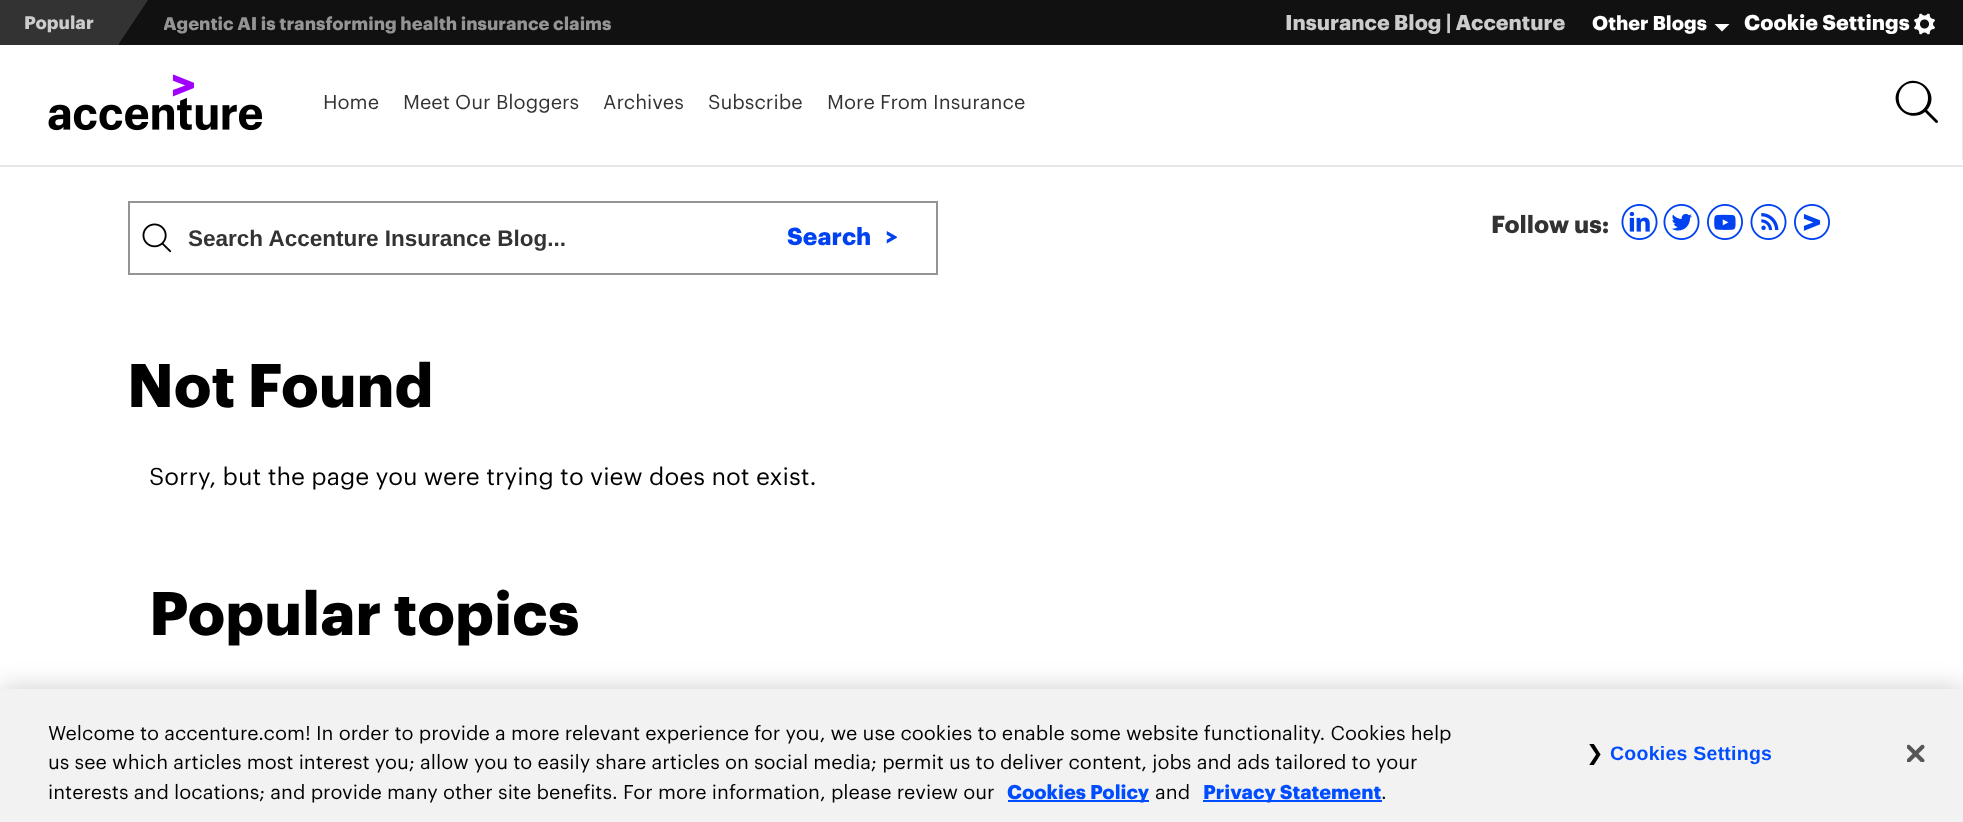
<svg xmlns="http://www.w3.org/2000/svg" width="1963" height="822">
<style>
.a{font:bold 18px Graphik;fill:#ccc}
.b{font:bold 18px Graphik;fill:#949494}
.c{font:bold 21px Graphik;fill:#ccc}
.d{font:bold 19.5px Graphik;fill:#fff}
.e{font:bold 21px Graphik;fill:#fff}
.f{font:19.6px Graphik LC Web;fill:#333}
.g{font:bold 24px Graphik;fill:#333}
.h{font:bold 22.5px Liberation Sans;fill:#333}
.i{font:bold 24px Graphik;fill:#0041f0}
.j{font:bold 60px Graphik;fill:#000}
.k{font:24px Graphik LC Web;fill:#000}
.l{font:19.5px Graphik LC Web;fill:#000}
.m{font:bold 19.5px Graphik;fill:#004dff}
.n{font:21px DejaVu Sans;letter-spacing:0.25px;fill:#000}
.o{font:bold 19.5px Liberation Sans;letter-spacing:0.25px;fill:#004dff}
</style>
<defs>
<clipPath id="clip1"><path d="M164 15h589v30H164z"/></clipPath>
</defs>
<rect width="100%" height="100%" fill="#fff"/>
<path fill="#e6e6e6" d="M0 165h1963v2H0z"/>
<path fill="#111" d="M119 0h1844v45H119z"/>
<path fill="#333" d="M0 0h119v45H0z"/>
<path fill="#333" d="M118 0h30l-30 45z"/>
<path fill="#fff" d="M1714.5 24h15l-7.5 7.5z"/>
<image href="1.png" x="1914" y="13" width="21" height="22"/>
<image href="2.png" x="48" y="74" width="214" height="57"/>
<path fill="#e6e6e6" d="M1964 45v120l-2-6v-114z"/>
<path fill="#000" d="M1938 121l-11-11c15-16-10-40-26-24c-16 16 7 39 24 26l11 11c2 0 2-1 2-2zm-25-8c-19 0-19-30 0-30c20 0 20 30 0 30z"/>
<image href="3.png" x="1621" y="204" width="37" height="36"/>
<image href="4.png" x="1663" y="204" width="37" height="36"/>
<image href="5.png" x="1707" y="204" width="36" height="36"/>
<image href="6.png" x="1750" y="204" width="37" height="36"/>
<image href="7.png" x="1794" y="204" width="36" height="36"/>
<image href="8.png" x="142" y="223" width="30" height="30"/>
<path fill="#949494" d="M128 201h810v2H128z"/>
<path fill="#949494" d="M128 273h607v2H128z"/>
<path fill="#949494" d="M128 201h2v74H128z"/>
<path fill="#949494" d="M936 201h2v74H936z"/>
<path fill="#949494" d="M735 273h203v2H735z"/>
<path fill="#00000033" filter="blur(13.5px)" d="M0 689h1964v133H0z"/>
<path fill="#f2f2f2" d="M0 689h1963v133H0z"/>
<path fill="#004dff" d="M1008 800h141v2H1008z"/>
<path fill="#004dff" d="M1203 800h179v2H1203z"/>
<image href="9.png" x="1907" y="744" width="18" height="18"/>
<text class="a" x="24" y="29">Popular</text>
<g clip-path="url(#clip1)">
<text class="b" x="163" y="30">Agentic AI is transforming health insurance claims</text>
</g>
<text class="c" x="1285" y="30">Insurance Blog | Accenture</text>
<text class="d" x="1592" y="30">Other Blogs</text>
<text class="e" x="1744" y="30">Cookie Settings</text>
<text class="f" x="323" y="109">Home</text>
<text class="f" x="403" y="109">Meet Our Bloggers</text>
<text class="f" x="603" y="109">Archives</text>
<text class="f" x="708" y="109">Subscribe</text>
<text class="f" x="827" y="109">More From Insurance</text>
<text class="g" x="1491" y="233">Follow us:</text>
<text class="h" x="188" y="246">Search Accenture Insurance Blog...</text>
<text class="i" xml:space="preserve" x="787" y="245">Search   &gt;</text>
<text class="j" x="127" y="407">Not Found</text>
<text class="k" x="149" y="485">Sorry, but the page you were trying to view does not exist.</text>
<text class="j" x="149" y="635">Popular topics</text>
<text class="l" x="48" y="740">Welcome to accenture.com! In order to provide a more relevant experience for you, we use cookies to enable some website functionality. Cookies help</text>
<text class="l" x="48" y="769">us see which articles most interest you; allow you to easily share articles on social media; permit us to deliver content, jobs and ads tailored to your</text>
<text class="l" x="48" y="799">interests and locations; and provide many other site benefits. For more information, please review our</text>
<text class="m" x="1007" y="799">Cookies Policy</text>
<text class="l" x="1155" y="799">and</text>
<text class="m" x="1203" y="799">Privacy Statement</text>
<text class="l" x="1381" y="799">.</text>
<text class="n" x="1586" y="760">❯</text>
<text class="o" x="1610" y="760">Cookies Settings</text>
</svg>
